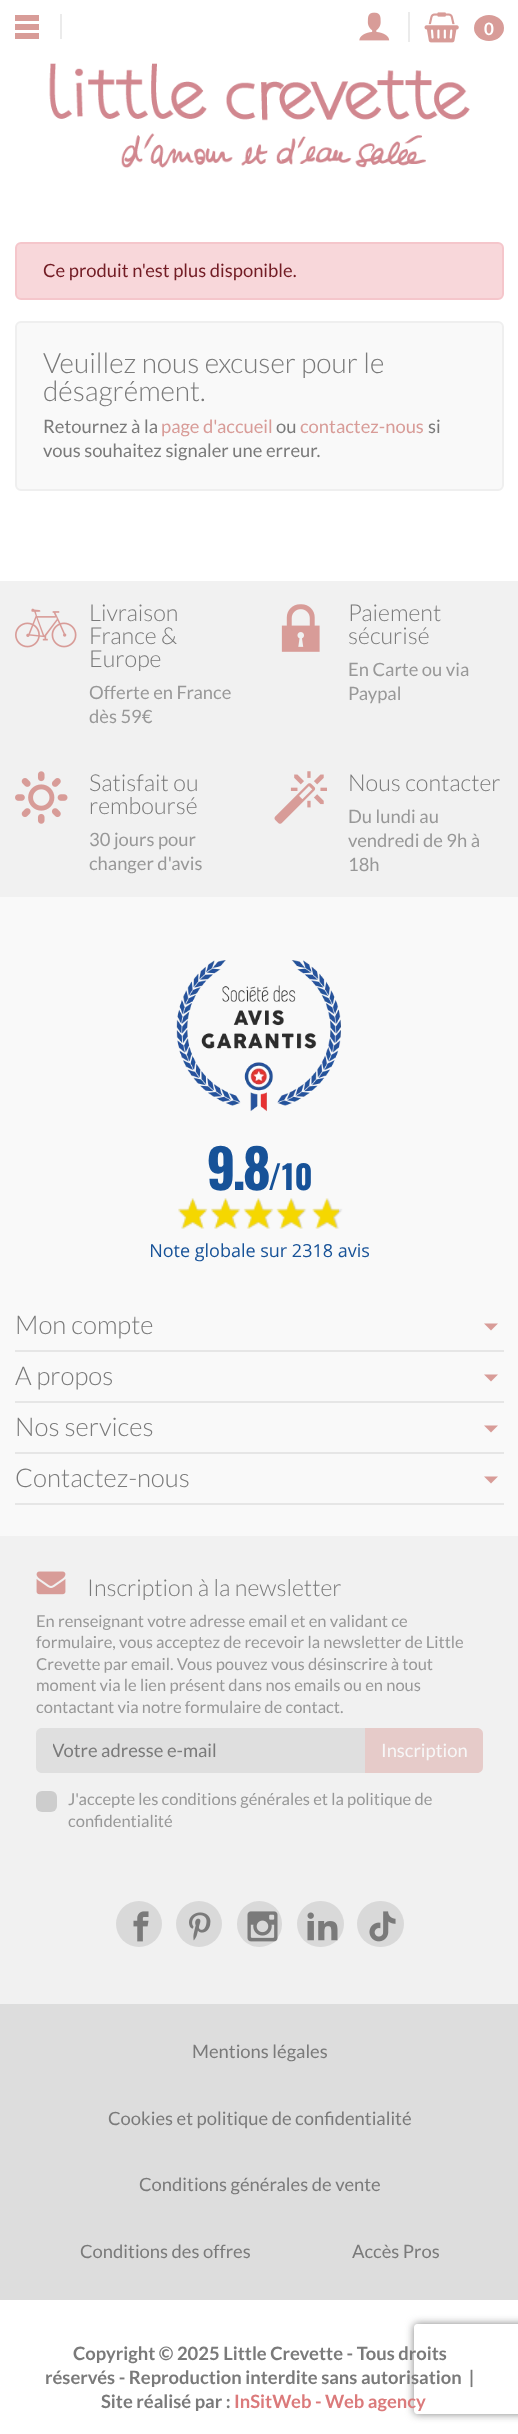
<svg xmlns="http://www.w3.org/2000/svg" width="518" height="2434">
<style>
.a{font:bold 17px Lato;fill:#fff}
.b{font:18.4px Lato;fill:#721c24}
.c{font:300 28.1px Lato;fill:#7a7a7a}
.d{font:18.4px Lato;fill:#7a7a7a}
.e{font:18.4px Lato;fill:#d89c98}
.f{font:300 23.25px Lato;fill:#7a7a7a}
.g{font:18.4px Lato;fill:#989898}
.h{font:300 25.75px Lato;fill:#7a7a7a}
.i{font:16.55px Lato;fill:#989898}
.j{font:18.4px Lato;fill:#f7f7f7}
.k{font:bold 18.4px Lato;fill:#7a7a7a}
.l{font:bold 18.4px Lato;fill:#db7a7b}
</style>
<defs>
<clipPath id="clip1"><path d="M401 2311h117v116h-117zm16 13h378c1.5 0 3 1.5 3 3v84c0 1.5-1.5 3-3 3h-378c-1.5 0-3-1.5-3-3v-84c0-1.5 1.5-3 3-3z" clip-rule="evenodd"/></clipPath>
<clipPath id="clip2"><path d="M53 1740h297v23H53z"/></clipPath>
</defs>
<rect width="100%" height="100%" fill="#fff"/>
<path fill="#ebebeb" d="M60 14h2v25H60z"/>
<image href="1.png" x="15" y="15" width="24" height="24"/>
<image href="2.png" x="359" y="12" width="31" height="29"/>
<path fill="#ebebeb" d="M408 12h2v30H408z"/>
<image href="3.png" x="424" y="12" width="35" height="31"/>
<ellipse fill="#d89c98" cx="489" cy="28" rx="15" ry="13"/>
<image href="4.png" x="49" y="63" width="421" height="105"/>
<rect fill="#f8d7da" stroke="#f5c6cb" stroke-width="2" x="16" y="243" width="487" height="56" rx="5"/>
<rect fill="#f9f9f9" stroke="#efefef" stroke-width="2" x="16" y="322" width="487" height="168" rx="5"/>
<path fill="#f1f1f1" d="M0 581h518v316H0z"/>
<image href="5.png" x="15" y="608" width="62" height="40"/>
<image href="6.png" x="281" y="604" width="39" height="48"/>
<image href="7.png" x="15" y="771" width="53" height="53"/>
<image href="8.png" x="274" y="771" width="53" height="53"/>
<path fill="#f9f9f9" d="M0 897h518v639H0z"/>
<image href="9.png" x="151" y="960" width="218" height="302"/>
<path fill="#e6e6e6" d="M15 1350h489v2H15z"/>
<path fill="#d89c98" d="M484 1323.5h14l-7 7z"/>
<path fill="#e6e6e6" d="M15 1401h489v2H15z"/>
<path fill="#d89c98" d="M484 1374.5h14l-7 7z"/>
<path fill="#e6e6e6" d="M15 1452h489v2H15z"/>
<path fill="#d89c98" d="M484 1425.5h14l-7 7z"/>
<path fill="#e6e6e6" d="M15 1503h489v2H15z"/>
<path fill="#d89c98" d="M484 1476.5h14l-7 7z"/>
<path fill="#f1f1f1" d="M0 1536h518v468H0z"/>
<image href="10.png" x="36" y="1571" width="30" height="24"/>
<path fill="#dfdfdf" d="M42 1728h323v45h-323c-3.5 0-6-2.5-6-6v-33c0-3.5 2.5-6 6-6z"/>
<path fill="#e6cbc9" d="M365 1728h112c3.5 0 6 2.5 6 6v33c0 3.5-2.5 6-6 6h-112z"/>
<rect fill="#cdcdcd" x="36" y="1791" width="21" height="21" rx="6"/>
<circle fill="#d9d9d9" cx="139" cy="1924" r="23"/>
<image href="11.png" x="133" y="1911" width="16" height="31"/>
<circle fill="#d9d9d9" cx="199" cy="1924" r="23"/>
<image href="12.png" x="189" y="1912" width="22" height="29"/>
<rect fill="#d9d9d9" x="237" y="1901" width="45" height="46" rx="22.5"/>
<image href="13.png" x="247" y="1911" width="31" height="31"/>
<rect fill="#d9d9d9" x="297" y="1901" width="47" height="46" rx="23"/>
<image href="14.png" x="307" y="1912" width="31" height="29"/>
<rect fill="#d9d9d9" x="357" y="1901" width="47" height="46" rx="23"/>
<image href="15.png" x="369" y="1911" width="27" height="31"/>
<path fill="#ddd" d="M0 2004h518v296H0z"/>
<g clip-path="url(#clip1)">
<rect fill="#808080" filter="blur(4px)" x="414" y="2324" width="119" height="90" rx="3"/>
</g>
<text class="a" x="484" y="35">0</text>
<text class="b" x="43" y="277">Ce produit n'est plus disponible.</text>
<text class="c" x="43" y="373">Veuillez nous excuser pour le</text>
<text class="c" x="43" y="401">désagrément.</text>
<text class="d" x="43" y="433">Retournez à la</text>
<text class="e" x="161" y="433">page d'accueil</text>
<text class="d" x="276" y="433">ou</text>
<text class="e" x="300" y="433">contactez-nous</text>
<text class="d" x="428" y="433">si</text>
<text class="d" x="43" y="457">vous souhaitez signaler une erreur.</text>
<text class="f" x="89" y="621">Livraison</text>
<text class="f" x="89" y="644">France &amp;</text>
<text class="f" x="89" y="667">Europe</text>
<text class="g" x="89" y="699">Offerte en France</text>
<text class="g" x="89" y="723">dès 59€</text>
<text class="f" x="348" y="621">Paiement</text>
<text class="f" x="348" y="644">sécurisé</text>
<text class="g" x="348" y="676">En Carte ou via</text>
<text class="g" x="348" y="700">Paypal</text>
<text class="f" x="89" y="791">Satisfait ou</text>
<text class="f" x="89" y="814">remboursé</text>
<text class="g" x="89" y="846">30 jours pour</text>
<text class="g" x="89" y="870">changer d'avis</text>
<text class="f" x="348" y="791">Nous contacter</text>
<text class="g" x="348" y="823">Du lundi au</text>
<text class="g" x="348" y="847">vendredi de 9h à</text>
<text class="g" x="348" y="871">18h</text>
<text class="h" x="15" y="1334">Mon compte</text>
<text class="h" x="15" y="1385">A propos</text>
<text class="h" x="15" y="1436">Nos services</text>
<text class="h" x="15" y="1487">Contactez-nous</text>
<text class="f" x="87" y="1596">Inscription à la newsletter</text>
<text class="i" x="36" y="1627">En renseignant votre adresse email et en validant ce</text>
<text class="i" x="36" y="1648">formulaire, vous acceptez de recevoir la newsletter de Little</text>
<text class="i" x="36" y="1670">Crevette par email. Vous pouvez vous désinscrire à tout</text>
<text class="i" x="36" y="1691">moment via le lien présent dans nos emails ou en nous</text>
<text class="i" x="36" y="1713">contactant via notre formulaire de contact.</text>
<g clip-path="url(#clip2)">
<text class="d" x="52" y="1757">Votre adresse e-mail</text>
</g>
<text class="j" x="381" y="1757">Inscription</text>
<text class="i" x="68" y="1805">J'accepte les conditions générales et la politique de</text>
<text class="i" x="68" y="1827">confidentialité</text>
<text class="d" x="192" y="2058">Mentions légales</text>
<text class="d" x="108" y="2125">Cookies et politique de confidentialité</text>
<text class="d" x="139" y="2191">Conditions générales de vente</text>
<text class="d" x="80" y="2258">Conditions des offres</text>
<text class="d" x="352" y="2258">Accès Pros</text>
<text class="k" x="73" y="2360">Copyright © 2025 Little Crevette - Tous droits</text>
<text class="k" xml:space="preserve" x="45" y="2384">réservés - Reproduction interdite sans autorisation  |</text>
<text class="k" x="101" y="2408">Site réalisé par :</text>
<text class="l" x="234" y="2408">InSitWeb - Web agency</text>
</svg>
